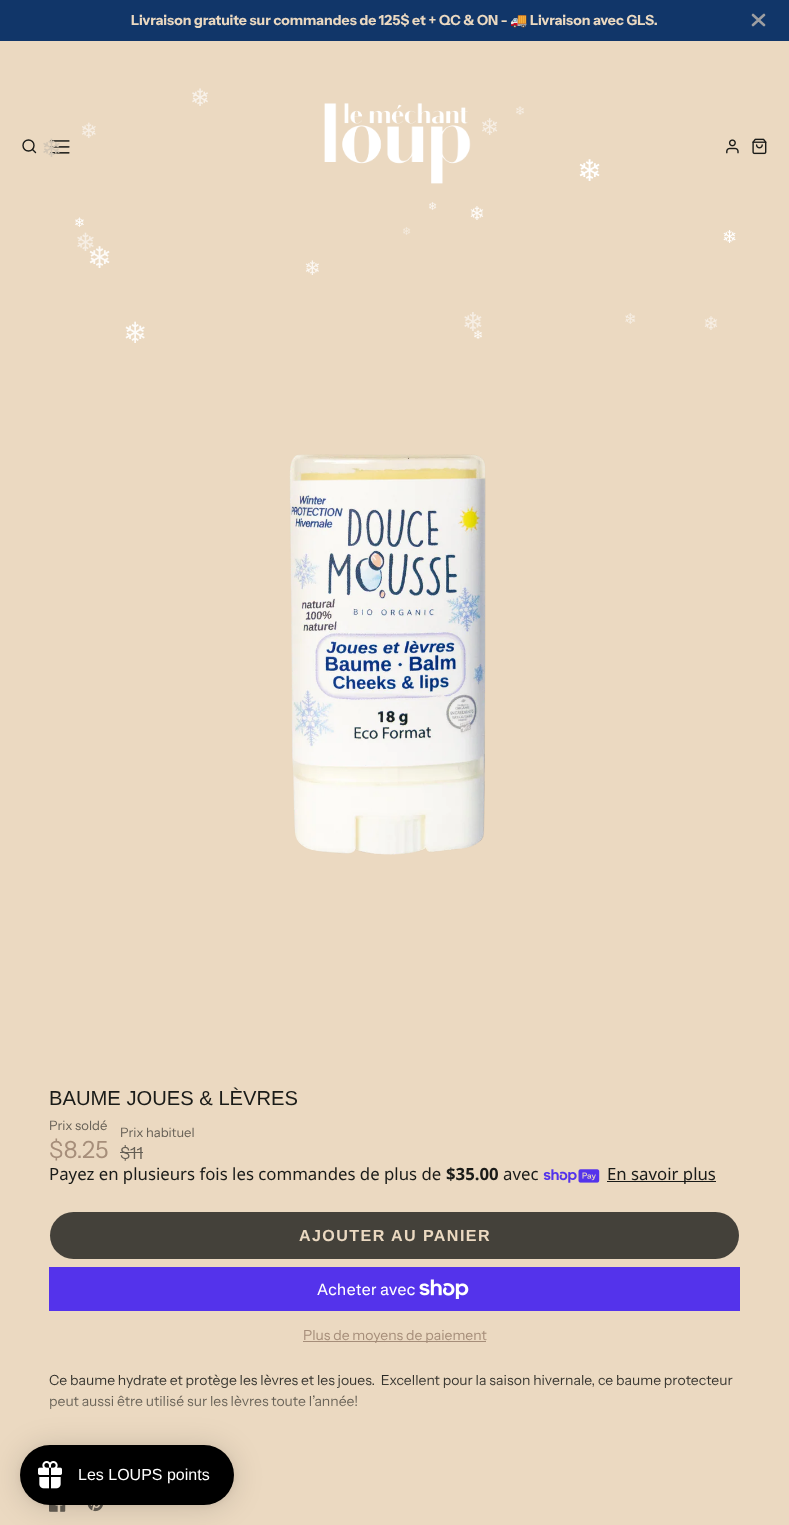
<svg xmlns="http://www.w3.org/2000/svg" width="789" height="1525">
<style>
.a{font:bold 14px Instrument Sans;fill:#ebd9c1}
.b{font:bold 14px Noto Color Emoji;fill:#ebd9c1}
.c{font:24px DejaVu Sans;fill:#f8f2ea}
.d{font:12px DejaVu Sans;fill:#f6eee4}
.e{font:21px DejaVu Sans;fill:#f6eee4}
.f{font:23px DejaVu Sans;fill:#f6eee4}
.g{font:25px DejaVu Sans;fill:#d2c6b5}
.h{font:30px DejaVu Sans;fill:#fff}
.i{font:11px DejaVu Sans;fill:#fbf7f2}
.j{font:19px DejaVu Sans;fill:#fdfbf8}
.k{font:13px DejaVu Sans;fill:#fff}
.l{font:25px DejaVu Sans;fill:#f6eee4}
.m{font:11px DejaVu Sans;fill:#f4ebde}
.n{font:18px DejaVu Sans;fill:#fff}
.o{font:30px DejaVu Sans;fill:#fdfbf8}
.p{font:20px DejaVu Sans;fill:#fbf7f2}
.q{font:29px DejaVu Sans;fill:#fdfbf8}
.r{font:26px DejaVu Sans;fill:#f6eee4}
.s{font:15px DejaVu Sans;fill:#f6eee4}
.t{font:19px DejaVu Sans;fill:#f6eee4}
.u{font:12px DejaVu Sans;fill:#fdfbf8}
.v{font:20.2px Liberation Sans;fill:#1a1b18}
.w{font:13px Instrument Sans;fill:#655f55}
.x{font:23.5px Instrument Sans;fill:#a68e7a}
.y{font:16.8px Instrument Sans;fill:#655f55}
.z{font:16.8px Noto Sans;fill:#1a1b18}
.a1{font:bold 16.8px Noto Sans;fill:#1a1b18}
.b1{font:bold 16.1px Liberation Sans;letter-spacing:1.4px;fill:#ebd9c1}
.c1{font:16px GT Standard;fill:#fff}
.d1{font:14px Instrument Sans;fill:#a68e7a}
.e1{font:14px Instrument Sans;fill:#1a1b18}
.f1{font:16px Liberation Sans;fill:#fff}
</style>
<defs>
<linearGradient id="g1" gradientUnits="userSpaceOnUse" x1="395" y1="1470" x2="395" y2="1370"><stop offset="0.15" stop-color="#ebd9c1"/><stop offset="1" stop-color="#ebd9c1" stop-opacity="0"/></linearGradient>
</defs>
<rect width="100%" height="100%" fill="#ebd9c1"/>
<path fill="#113669" d="M0 0h789v41H0z"/>
<path fill="none" stroke="#9d9ea1" stroke-width="2.6" stroke-linecap="round" stroke-linejoin="round" d="M764 15l-11 10m0-10l11 10"/>
<circle fill="none" stroke="#1a1b18" stroke-width="1.4" cx="28.5" cy="145.5" r="5.5"/>
<path fill="none" stroke="#1a1b18" stroke-width="1.4" stroke-linecap="round" stroke-linejoin="round" d="M35.5 152.5l-3-3"/>
<image href="1.png" x="50" y="140" width="20" height="14"/>
<image href="2.png" x="324" y="103" width="147" height="81"/>
<image href="3.png" x="726" y="139" width="13" height="15"/>
<image href="4.png" x="752" y="138" width="15" height="17"/>
<image href="5.png" x="289" y="454" width="197" height="401"/>
<path fill="#655f55" d="M120 1152h23v1H120z"/>
<image href="6.png" x="543" y="1169" width="57" height="14"/>
<path fill="#1a1b18" d="M607 1181h109v1H607z"/>
<rect fill="#44413a" x="50" y="1212" width="689" height="47" rx="23.5"/>
<path fill="#5433eb" d="M49 1267h691v44H49z"/>
<image href="7.png" x="419" y="1279" width="50" height="20"/>
<path fill="#a68e7a" d="M303 1341h183v1H303z"/>
<image href="8.png" x="49" y="1504" width="17" height="8"/>
<image href="9.png" x="87" y="1505" width="16" height="7"/>
<rect fill="#0000000d" filter="blur(3px)" x="20" y="1446" width="214" height="60" rx="30"/>
<text class="a" x="131" y="25">Livraison gratuite sur commandes de 125$ et + QC &amp; ON -</text>
<text class="b" x="510" y="25">🚚</text>
<text class="a" x="530" y="25">Livraison avec GLS.</text>
<text class="c" x="190" y="106">❄</text>
<text class="d" x="515" y="115">❄</text>
<text class="e" x="80" y="138">❄</text>
<text class="f" x="480" y="135">❄</text>
<text class="g" x="41" y="157">❄</text>
<text class="h" x="577" y="181">❄</text>
<text class="i" x="428" y="210">❄</text>
<text class="j" x="469" y="220">❄</text>
<text class="k" x="74" y="227">❄</text>
<text class="l" x="75" y="251">❄</text>
<text class="m" x="402" y="235">❄</text>
<text class="n" x="722" y="243">❄</text>
<text class="o" x="87" y="268">❄</text>
<text class="p" x="304" y="275">❄</text>
<text class="q" x="123" y="343">❄</text>
<text class="r" x="462" y="331">❄</text>
<text class="s" x="624" y="324">❄</text>
<text class="t" x="703" y="330">❄</text>
<text class="u" x="473" y="339">❄</text>
<text class="v" x="49" y="1105">BAUME JOUES &amp; LÈVRES</text>
<text class="w" x="49" y="1130">Prix soldé</text>
<text class="x" x="49" y="1158">$8.25</text>
<text class="w" x="120" y="1137">Prix habituel</text>
<text class="y" x="120" y="1159">$11</text>
<text class="z" x="49" y="1180">Payez en plusieurs fois les commandes de plus de</text>
<text class="a1" x="446" y="1180">$35.00</text>
<text class="z" x="503" y="1180">avec</text>
<text class="z" x="607" y="1180">En savoir plus</text>
<text class="b1" x="299" y="1241">AJOUTER AU PANIER</text>
<text class="c1" x="317" y="1295">Acheter avec</text>
<text class="d1" x="303" y="1340">Plus de moyens de paiement</text>
<text class="e1" xml:space="preserve" x="49" y="1385">Ce baume hydrate et protège les lèvres et les joues.  Excellent pour la saison hivernale, ce baume protecteur</text>
<text class="e1" x="49" y="1406">peut aussi être utilisé sur les lèvres toute l’année!</text>
<path fill="url(#g1)" d="M49 1374h684v35H49z"/>
<rect fill="#00000026" filter="blur(15px)" x="20" y="1447" width="214" height="60" rx="30"/>
<rect fill="#000" x="20" y="1445" width="214" height="60" rx="30"/>
<image href="10.png" x="38" y="1461" width="24" height="28"/>
<text class="f1" x="78" y="1480">Les LOUPS points</text>
</svg>
